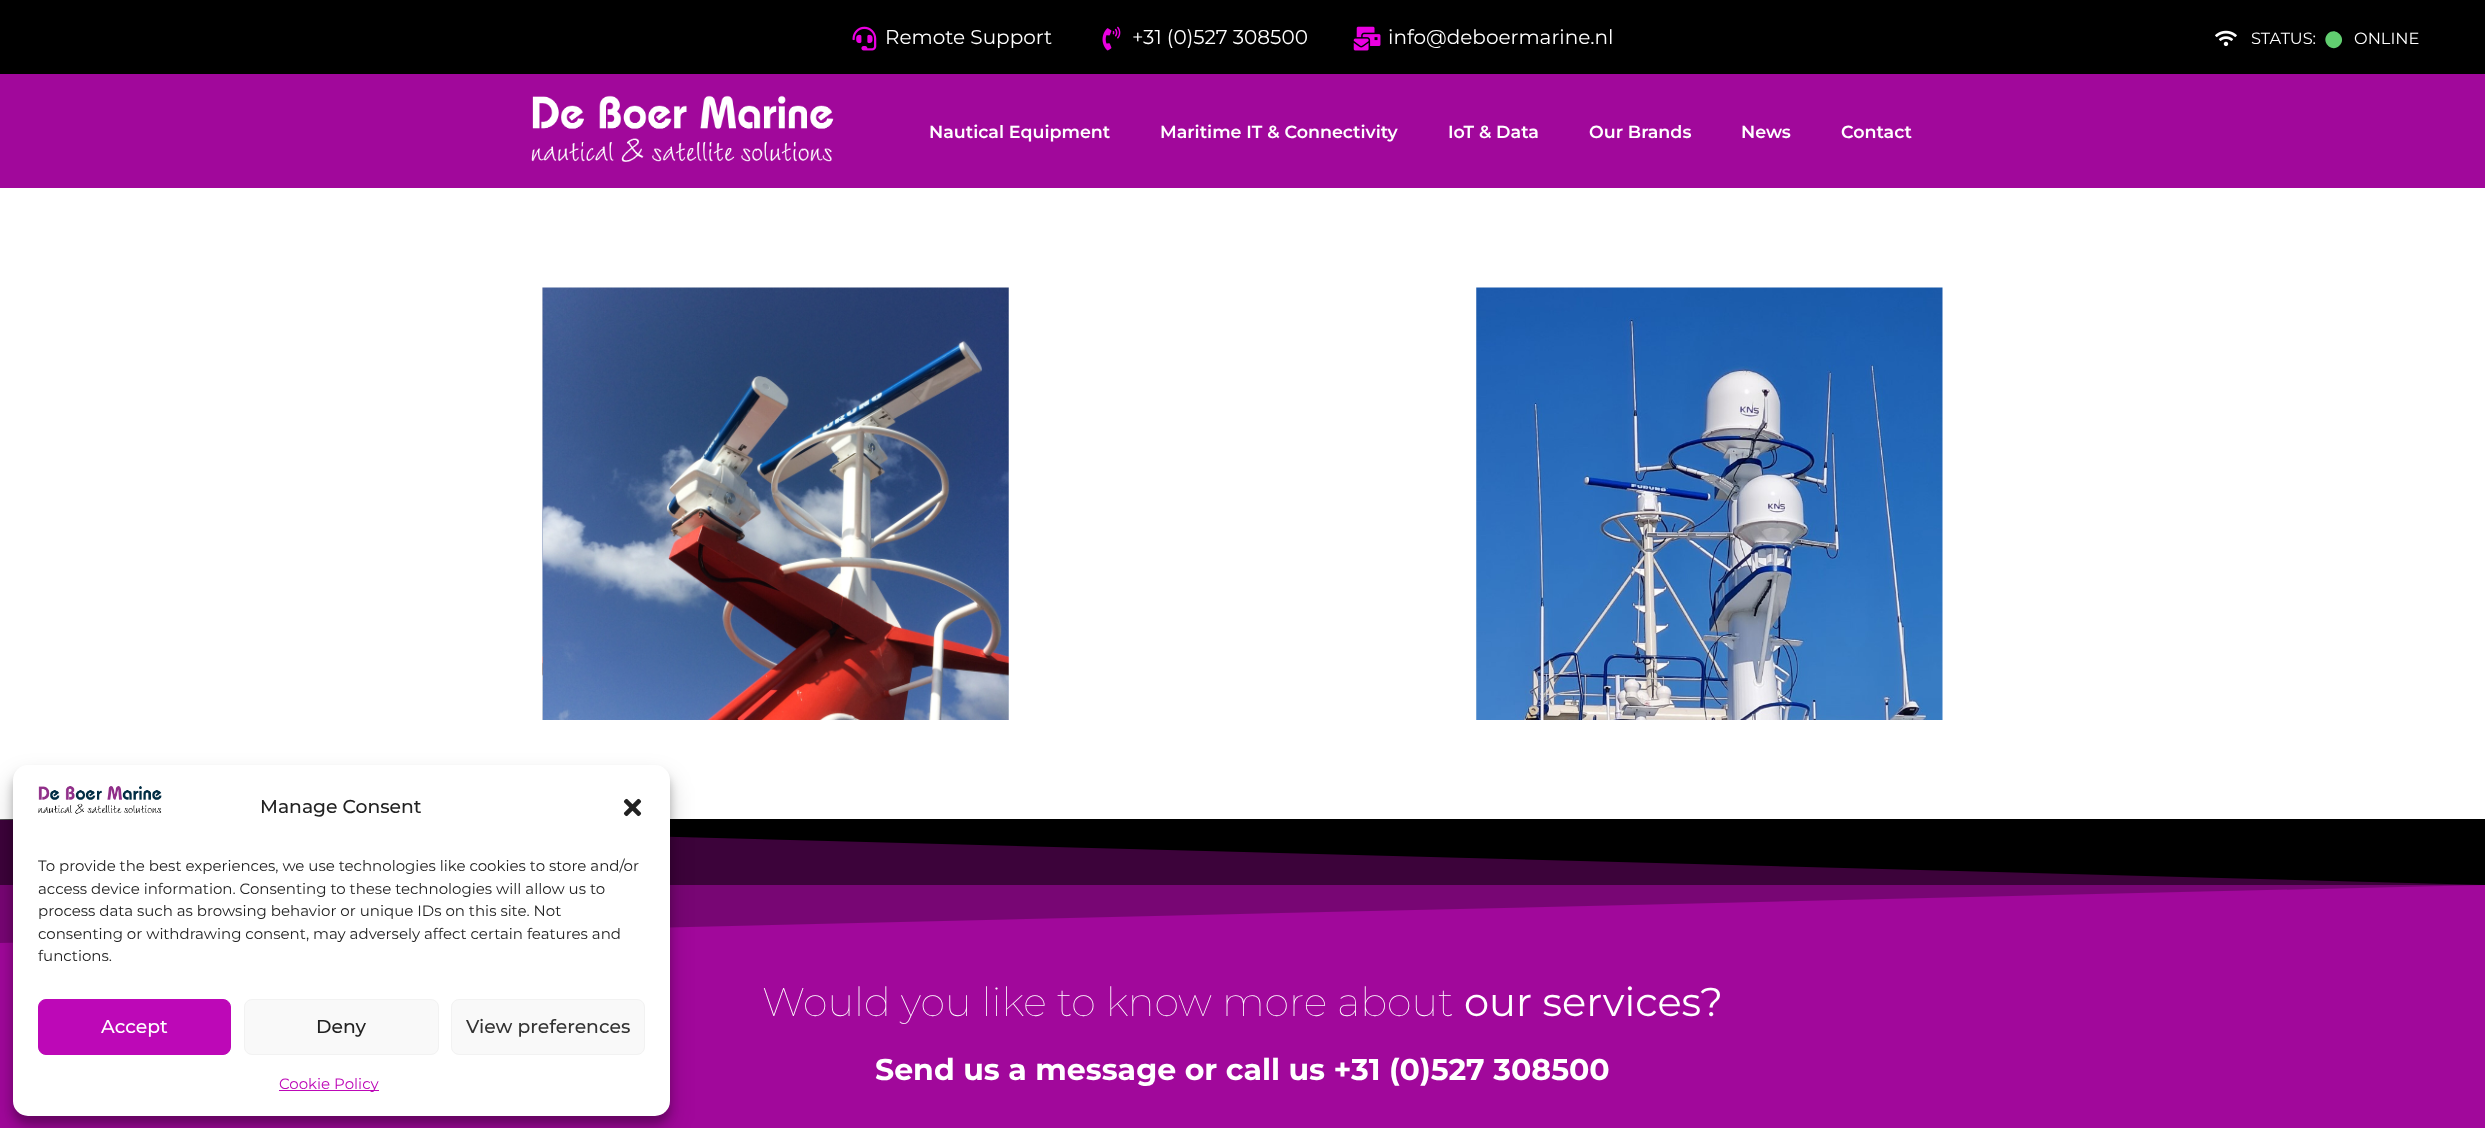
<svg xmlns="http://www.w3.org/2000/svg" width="2485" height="1128">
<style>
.a{font:20px Montserrat;fill:#fff}
.b{font:16.25px Montserrat;fill:#fff}
.c{font:600 17.5px Montserrat;fill:#fff}
.d{font:500 18.75px Montserrat;fill:#222}
.e{font:15px Montserrat;fill:#222}
.f{font:500 18.75px Montserrat;fill:#fff}
.g{font:500 18.75px Montserrat;fill:#333}
.h{font:15px Montserrat;fill:#bd08b7}
.i{font:100 40px Montserrat;fill:#fff}
.j{font:40px Montserrat;fill:#fff}
.k{font:bold 30px Montserrat;fill:#fff}
</style>
<rect width="100%" height="100%" fill="#fff"/>
<path fill="#808080" d="M0 819h13v1H0z"/>
<path fill="#000" d="M0 0h2485v74H0z"/>
<image href="1.png" x="852" y="26" width="25" height="25"/>
<image href="2.png" x="1102" y="26" width="19" height="25"/>
<image href="3.png" x="1353" y="26" width="28" height="25"/>
<image href="4.png" x="2215" y="30" width="22" height="17"/>
<path fill="#61ce70" d="M2328 33.5c7.5-7.5 19.5 4.5 11.5 12c-7.5 8-19.5-4-11.5-12z"/>
<path fill="#a1089b" d="M0 74h2485v114H0z"/>
<image href="5.png" x="531" y="95" width="303" height="67"/>
<image href="6.png" x="542" y="287" width="467" height="433"/>
<image href="7.png" x="1476" y="287" width="467" height="433"/>
<path fill="#a1089b" d="M0 885h2485v243H0z"/>
<path fill="#51044e" d="M0 820h2485v65H0z"/>
<path fill="#000" d="M-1 819h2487v66z"/>
<path fill="#00000040" d="M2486 819h-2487v124l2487-58z"/>
<rect fill="#0000003b" filter="blur(4px)" x="13" y="773" width="657" height="351" rx="15"/>
<rect fill="#00000030" filter="blur(12.5px)" x="13" y="778" width="657" height="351" rx="15"/>
<rect fill="#fff" x="13" y="765" width="657" height="351" rx="15"/>
<image href="8.png" x="38" y="786" width="124" height="28"/>
<image href="9.png" x="623" y="798" width="19" height="19"/>
<rect fill="#bd08b7" stroke="#bd08b7" x="38.5" y="999.5" width="192" height="55" rx="7.5"/>
<rect fill="#f9f9f9" stroke="#f2f2f2" x="244.5" y="999.5" width="194" height="55" rx="7.5"/>
<rect fill="#f9f9f9" stroke="#f2f2f2" x="451.5" y="999.5" width="193" height="55" rx="7.5"/>
<path fill="#bd08b7" d="M279 1090h100v1H279z"/>
<text class="a" x="885" y="44">Remote Support</text>
<text class="a" x="1132" y="44">+31 (0)527 308500</text>
<text class="a" x="1388" y="44">info@deboermarine.nl</text>
<text class="b" x="2251" y="44">STATUS:</text>
<text class="b" x="2354" y="44">ONLINE</text>
<text class="c" x="929" y="138">Nautical Equipment</text>
<text class="c" x="1160" y="138">Maritime IT &amp; Connectivity</text>
<text class="c" x="1448" y="138">IoT &amp; Data</text>
<text class="c" x="1589" y="138">Our Brands</text>
<text class="c" x="1741" y="138">News</text>
<text class="c" x="1841" y="138">Contact</text>
<text class="d" x="260" y="813">Manage Consent</text>
<text class="e" x="38" y="871">To provide the best experiences, we use technologies like cookies to store and/or</text>
<text class="e" x="38" y="894">access device information. Consenting to these technologies will allow us to</text>
<text class="e" x="38" y="916">process data such as browsing behavior or unique IDs on this site. Not</text>
<text class="e" x="38" y="939">consenting or withdrawing consent, may adversely affect certain features and</text>
<text class="e" x="38" y="961">functions.</text>
<text class="f" x="101" y="1033">Accept</text>
<text class="d" x="316" y="1033">Deny</text>
<text class="g" x="466" y="1033">View preferences</text>
<text class="h" x="279" y="1089">Cookie Policy</text>
<text class="i" x="762" y="1016">Would you like to know more about</text>
<text class="j" x="1464" y="1016">our services?</text>
<text class="k" x="875" y="1080">Send us a message or call us +31 (0)527 308500</text>
</svg>
